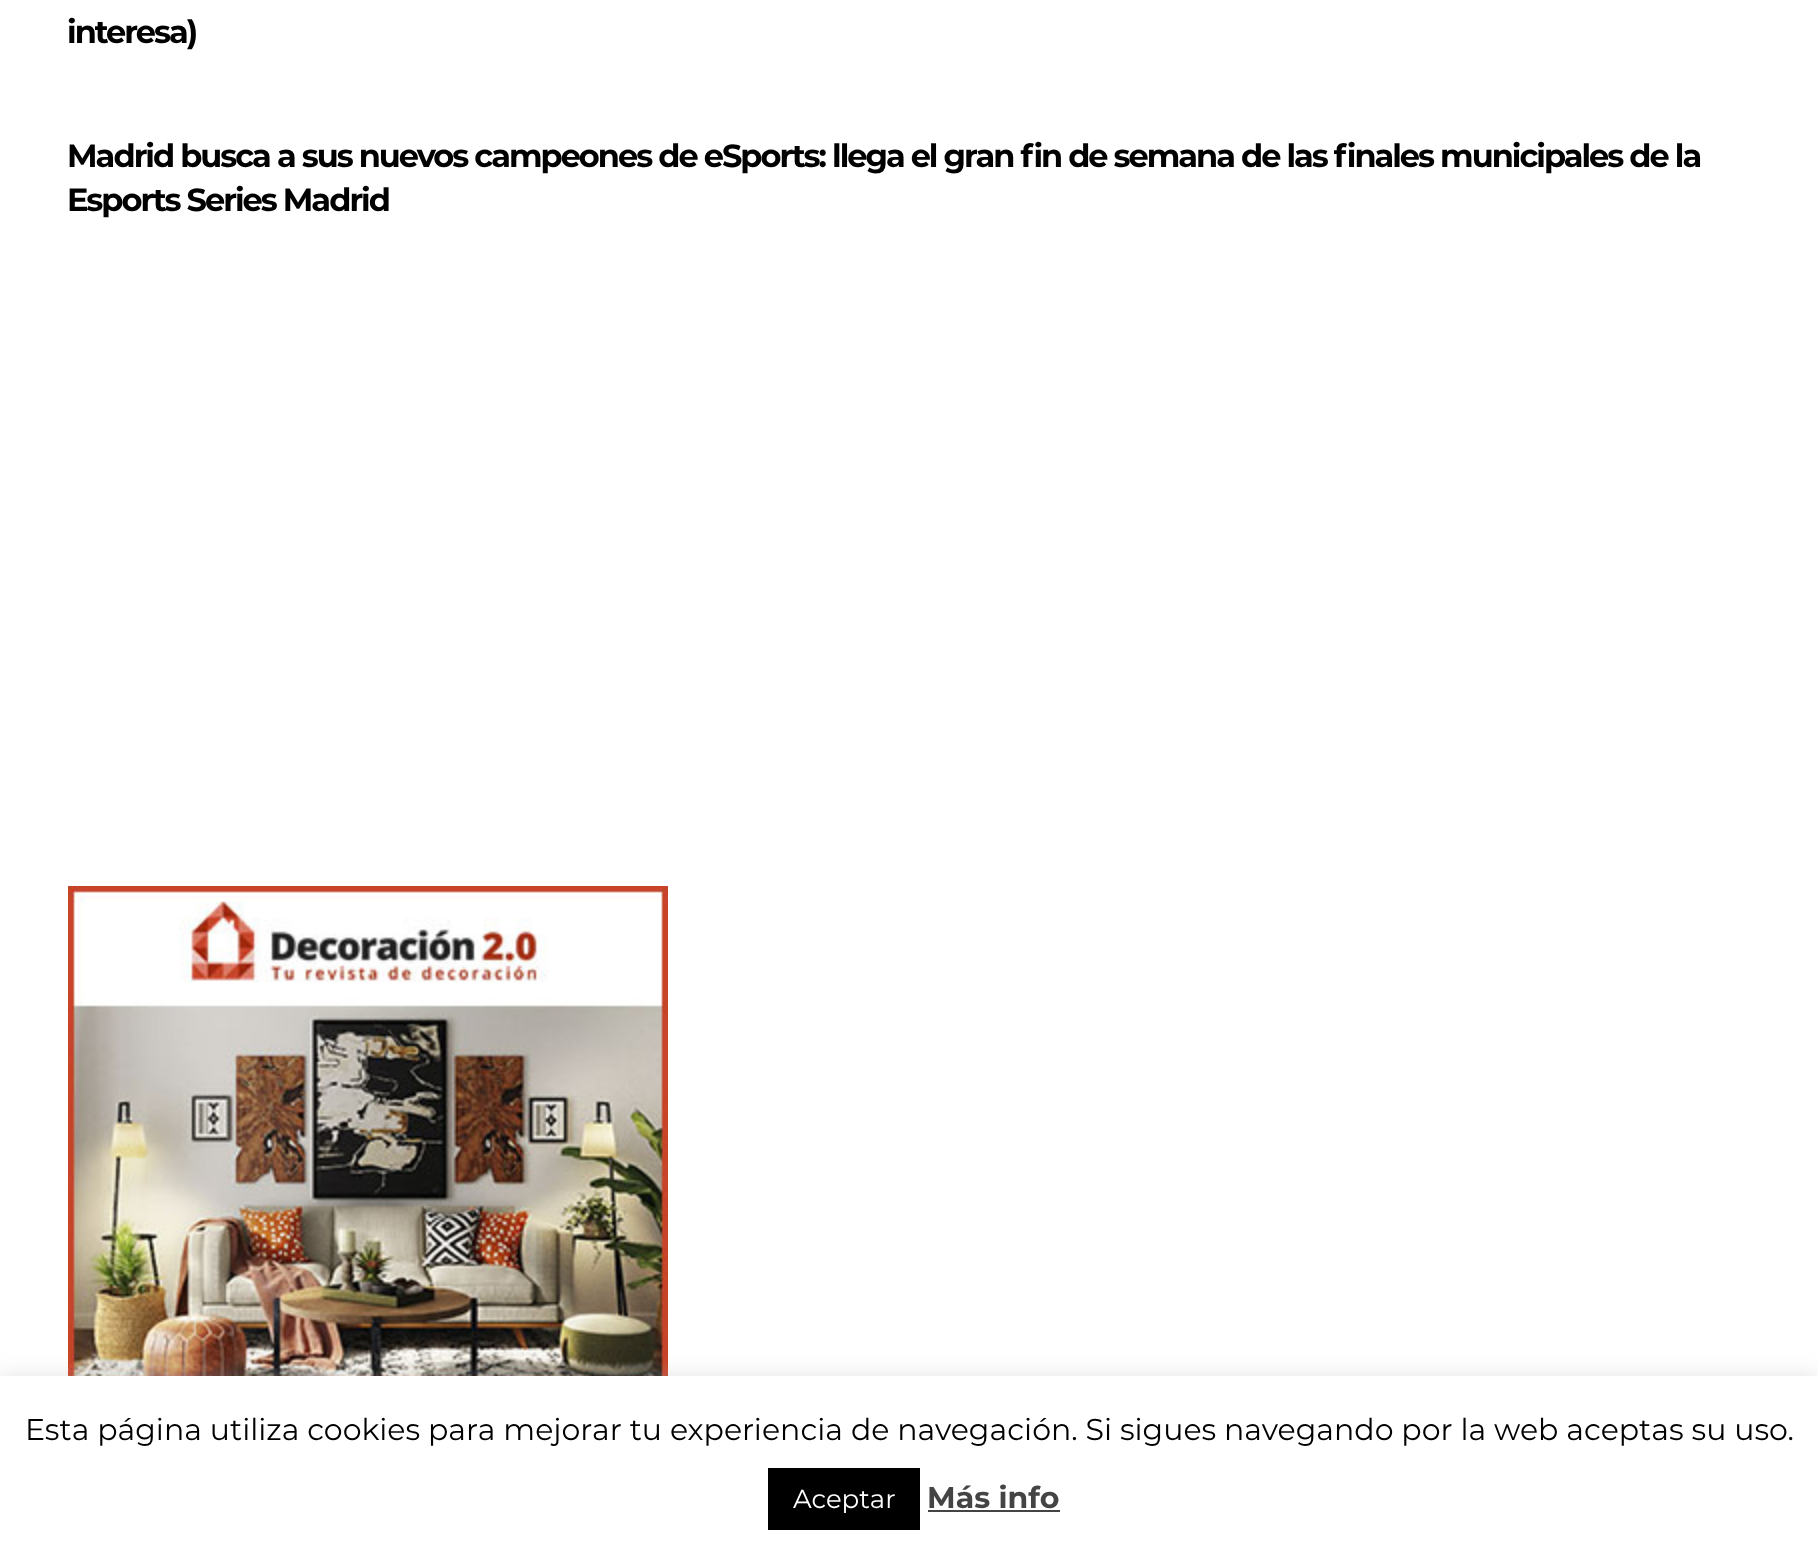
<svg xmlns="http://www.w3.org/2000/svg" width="1818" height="1554">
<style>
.a{font:bold 32px Montserrat;letter-spacing:-2px;fill:#000}
.b{font:30px Montserrat;fill:#000}
.c{font:26px Montserrat;fill:#fff}
.d{font:bold 30px Montserrat;fill:#444}
</style>
<rect width="100%" height="100%" fill="#fff"/>
<image href="1.png" x="68" y="886" width="600" height="490"/>
<path fill="#acabab4d" filter="blur(10px)" d="M0 1374h1818v178H0z"/>
<path fill="#fff" d="M0 1376h1818v178H0z"/>
<path fill="#000" d="M768 1468h152v62H768z"/>
<path fill="#444" d="M928 1510h132v2H928z"/>
<text class="a" x="67" y="43">interesa)</text>
<text class="a" x="67" y="167">Madrid busca a sus nuevos campeones de eSports: llega el gran fin de semana de las finales municipales de la</text>
<text class="a" x="67" y="211">Esports Series Madrid</text>
<text class="b" x="25" y="1440">Esta página utiliza cookies para mejorar tu experiencia de navegación. Si sigues navegando por la web aceptas su uso.</text>
<text class="c" x="793" y="1508">Aceptar</text>
<text class="d" x="927" y="1508">Más info</text>
</svg>
